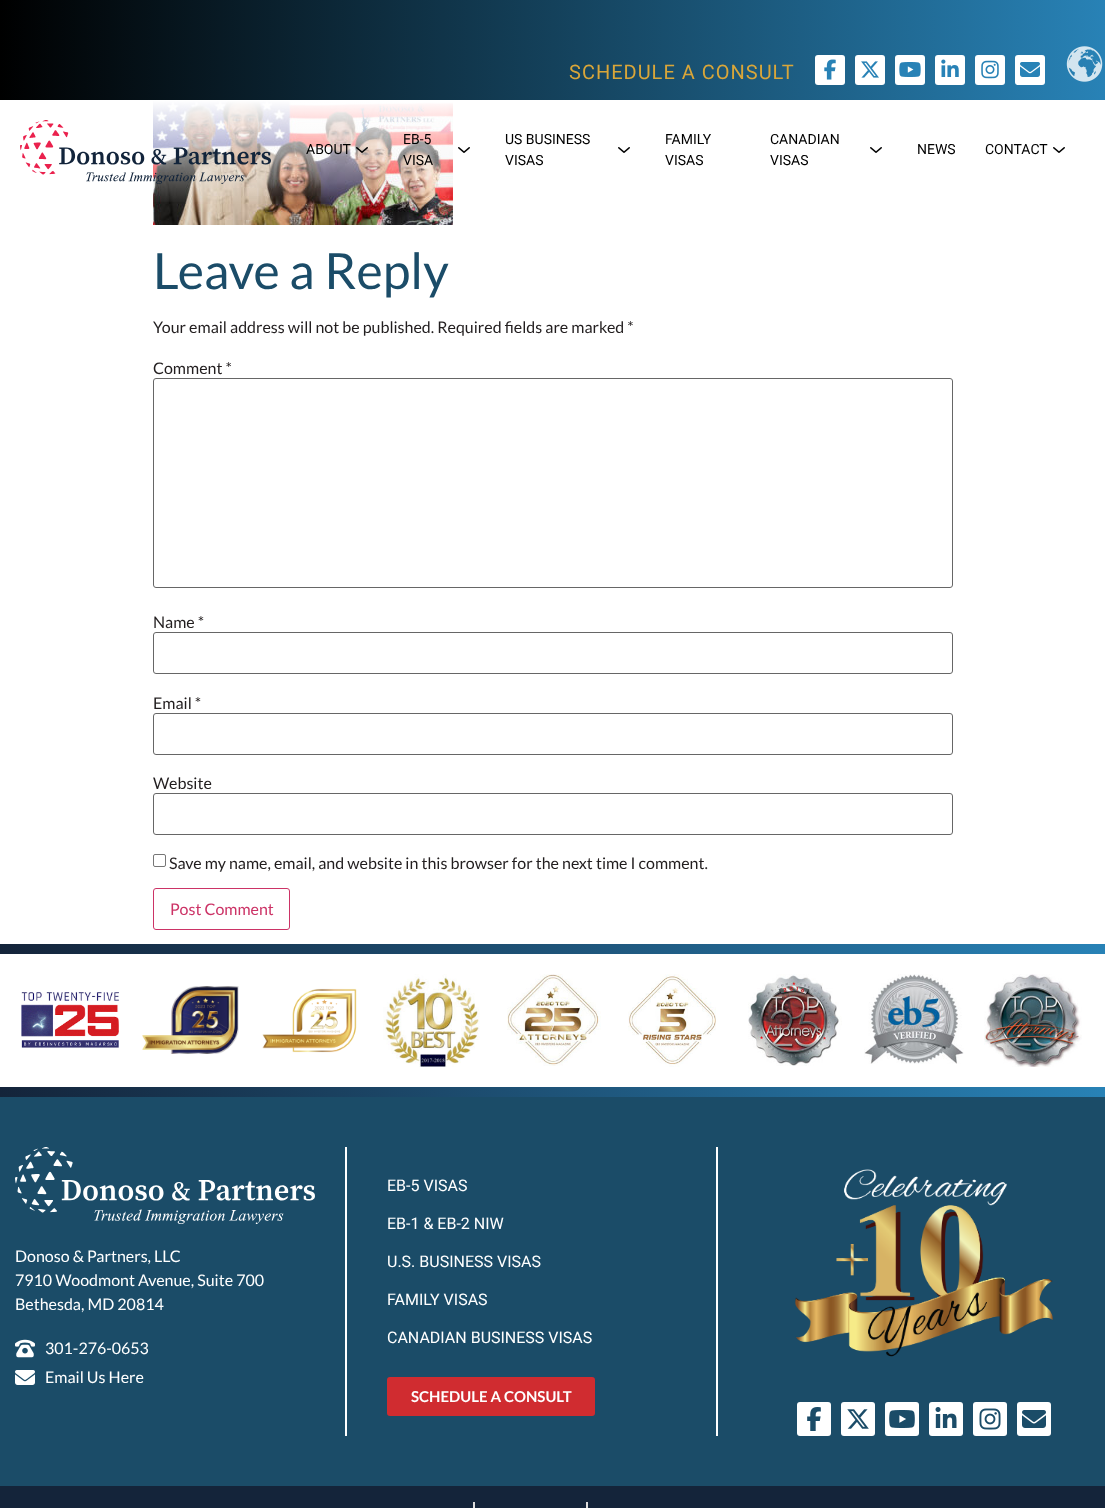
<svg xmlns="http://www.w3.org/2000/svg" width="1105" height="1508">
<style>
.a{font:20px Roboto;letter-spacing:1px;fill:#d9a639}
.b{font:14px Roboto;fill:#000}
.c{font:50px Lato;fill:#1b4c68}
.d{font:16px Lato;fill:#221e1f}
.e{font:16px Lato;fill:#c36}
.f{font:16px Lato;fill:#fff}
.g{font:16px Roboto;fill:#fff}
.h{font:bold 15px Lato;fill:#fff}
</style>
<defs>
<linearGradient id="g1" gradientUnits="userSpaceOnUse" x1="0" y1="50" x2="1105" y2="50"><stop offset="0" stop-color="#000"/><stop offset="1" stop-color="#2882b6"/></linearGradient>
<linearGradient id="g2" gradientUnits="userSpaceOnUse" x1="553" y1="100" x2="553" y2="204"><stop offset="0" stop-color="#fff"/><stop offset="1" stop-color="#fff" stop-opacity="0"/></linearGradient>
<linearGradient id="g3" gradientUnits="userSpaceOnUse" x1="1105" y1="949" x2="0" y2="949"><stop offset="0" stop-color="#2882b6"/><stop offset="1" stop-color="#14243a"/></linearGradient>
<linearGradient id="g4" gradientUnits="userSpaceOnUse" x1="1105" y1="1092" x2="0" y2="1092"><stop offset="0" stop-color="#2882b6"/><stop offset="1" stop-color="#14243a"/></linearGradient>
</defs>
<rect width="100%" height="100%" fill="#fff"/>
<path fill="url(#g1)" d="M0 0h1105v100H0z"/>
<rect fill="#fff" x="815" y="55" width="30" height="30" rx="3"/>
<image href="1.png" x="824" y="59" width="12" height="21"/>
<rect fill="#fff" x="855" y="55" width="30" height="30" rx="3"/>
<image href="2.png" x="861" y="61" width="18" height="17"/>
<rect fill="#fff" x="895" y="55" width="30" height="30" rx="3"/>
<image href="3.png" x="899" y="62" width="22" height="15"/>
<rect fill="#fff" x="935" y="55" width="30" height="30" rx="3"/>
<image href="4.png" x="941" y="59" width="18" height="18"/>
<rect fill="#fff" x="975" y="55" width="30" height="30" rx="3"/>
<image href="5.png" x="981" y="60" width="18" height="19"/>
<rect fill="#fff" x="1015" y="55" width="30" height="30" rx="3"/>
<image href="6.png" x="1020" y="62" width="20" height="15"/>
<image href="7.png" x="1066" y="46" width="37" height="36"/>
<image href="11.png" x="153" y="101" width="300" height="124"/>
<path fill="url(#g2)" d="M153 101h300v101H153z"/>
<image href="8.png" x="20" y="120" width="251" height="64"/>
<image href="9.png" x="356" y="147" width="12" height="6"/>
<image href="10.png" x="458" y="147" width="12" height="6"/>
<image href="10.png" x="618" y="147" width="12" height="6"/>
<image href="10.png" x="870" y="147" width="12" height="6"/>
<image href="10.png" x="1053" y="147" width="12" height="6"/>
<rect fill="none" stroke="#666" x="153.5" y="378.5" width="799" height="209" rx="2.5"/>
<rect fill="none" stroke="#666" x="153.5" y="632.5" width="799" height="41" rx="2.5"/>
<rect fill="none" stroke="#666" x="153.5" y="713.5" width="799" height="41" rx="2.5"/>
<rect fill="none" stroke="#666" x="153.5" y="793.5" width="799" height="41" rx="2.5"/>
<rect fill="none" stroke="#767676" x="153.5" y="854.5" width="12" height="12" rx="1.5"/>
<rect fill="none" stroke="#c36" x="153.5" y="888.5" width="136" height="41" rx="2.5"/>
<path fill="url(#g3)" d="M0 944h1105v10H0z"/>
<image href="12.png" x="21" y="992" width="98" height="56"/>
<image href="13.png" x="142" y="986" width="97" height="68"/>
<image href="14.png" x="262" y="988" width="95" height="65"/>
<image href="15.png" x="383" y="974" width="97" height="93"/>
<image href="16.png" x="507" y="974" width="94" height="92"/>
<image href="17.png" x="628" y="974" width="88" height="93"/>
<image href="18.png" x="748" y="974" width="94" height="92"/>
<image href="19.png" x="864" y="974" width="100" height="90"/>
<image href="20.png" x="984" y="974" width="98" height="93"/>
<path fill="url(#g4)" d="M0 1087h1105v10H0z"/>
<path fill="#1b4c68" d="M0 1097h1105v389H0z"/>
<path fill="#fff" d="M345 1147h2v289H345z"/>
<image href="21.png" x="15" y="1147" width="300" height="77"/>
<image href="22.png" x="15" y="1339" width="20" height="19"/>
<image href="23.png" x="15" y="1370" width="20" height="15"/>
<path fill="#fff" d="M716 1147h2v289H716z"/>
<rect fill="#d02c30" x="387" y="1377" width="208" height="39" rx="3"/>
<image href="24.png" x="795" y="1169" width="258" height="188"/>
<rect fill="#fff" x="797" y="1402" width="34" height="34" rx="3"/>
<image href="25.png" x="807" y="1407" width="14" height="24"/>
<rect fill="#fff" x="841" y="1402" width="34" height="34" rx="3"/>
<image href="26.png" x="847" y="1409" width="22" height="20"/>
<rect fill="#fff" x="885" y="1402" width="34" height="34" rx="3"/>
<image href="27.png" x="889" y="1410" width="26" height="18"/>
<rect fill="#fff" x="929" y="1402" width="34" height="34" rx="3"/>
<image href="28.png" x="935" y="1407" width="22" height="21"/>
<rect fill="#fff" x="973" y="1402" width="34" height="34" rx="3"/>
<image href="29.png" x="979" y="1408" width="22" height="22"/>
<rect fill="#fff" x="1017" y="1402" width="34" height="34" rx="3"/>
<image href="30.png" x="1022" y="1410" width="24" height="18"/>
<path fill="#14243a" d="M0 1486h1105v22H0z"/>
<path fill="#ddd" d="M473 1502h2v6H473z"/>
<path fill="#ddd" d="M586 1502h2v6H586z"/>
<text class="a" x="569" y="79">SCHEDULE A CONSULT</text>
<text class="b" x="306" y="154">ABOUT</text>
<text class="b" x="403" y="144">EB-5</text>
<text class="b" x="403" y="165">VISA</text>
<text class="b" x="505" y="144">US BUSINESS</text>
<text class="b" x="505" y="165">VISAS</text>
<text class="b" x="665" y="144">FAMILY</text>
<text class="b" x="665" y="165">VISAS</text>
<text class="b" x="770" y="144">CANADIAN</text>
<text class="b" x="770" y="165">VISAS</text>
<text class="b" x="917" y="154">NEWS</text>
<text class="b" x="985" y="154">CONTACT</text>
<text class="c" x="153" y="289">Leave a Reply</text>
<text class="d" x="153" y="333">Your email address will not be published. Required fields are marked *</text>
<text class="d" x="153" y="374">Comment *</text>
<text class="d" x="153" y="628">Name *</text>
<text class="d" x="153" y="709">Email *</text>
<text class="d" x="153" y="789">Website</text>
<text class="d" x="169" y="869">Save my name, email, and website in this browser for the next time I comment.</text>
<text class="e" x="170" y="915">Post Comment</text>
<text class="f" x="15" y="1262">Donoso &amp; Partners, LLC</text>
<text class="f" x="15" y="1286">7910 Woodmont Avenue, Suite 700</text>
<text class="f" x="15" y="1310">Bethesda, MD 20814</text>
<text class="f" x="45" y="1354">301-276-0653</text>
<text class="f" x="45" y="1383">Email Us Here</text>
<text class="g" x="387" y="1191">EB-5 VISAS</text>
<text class="g" x="387" y="1229">EB-1 &amp; EB-2 NIW</text>
<text class="g" x="387" y="1267">U.S. BUSINESS VISAS</text>
<text class="g" x="387" y="1305">FAMILY VISAS</text>
<text class="g" x="387" y="1343">CANADIAN BUSINESS VISAS</text>
<text class="h" x="411" y="1402">SCHEDULE A CONSULT</text>
</svg>
